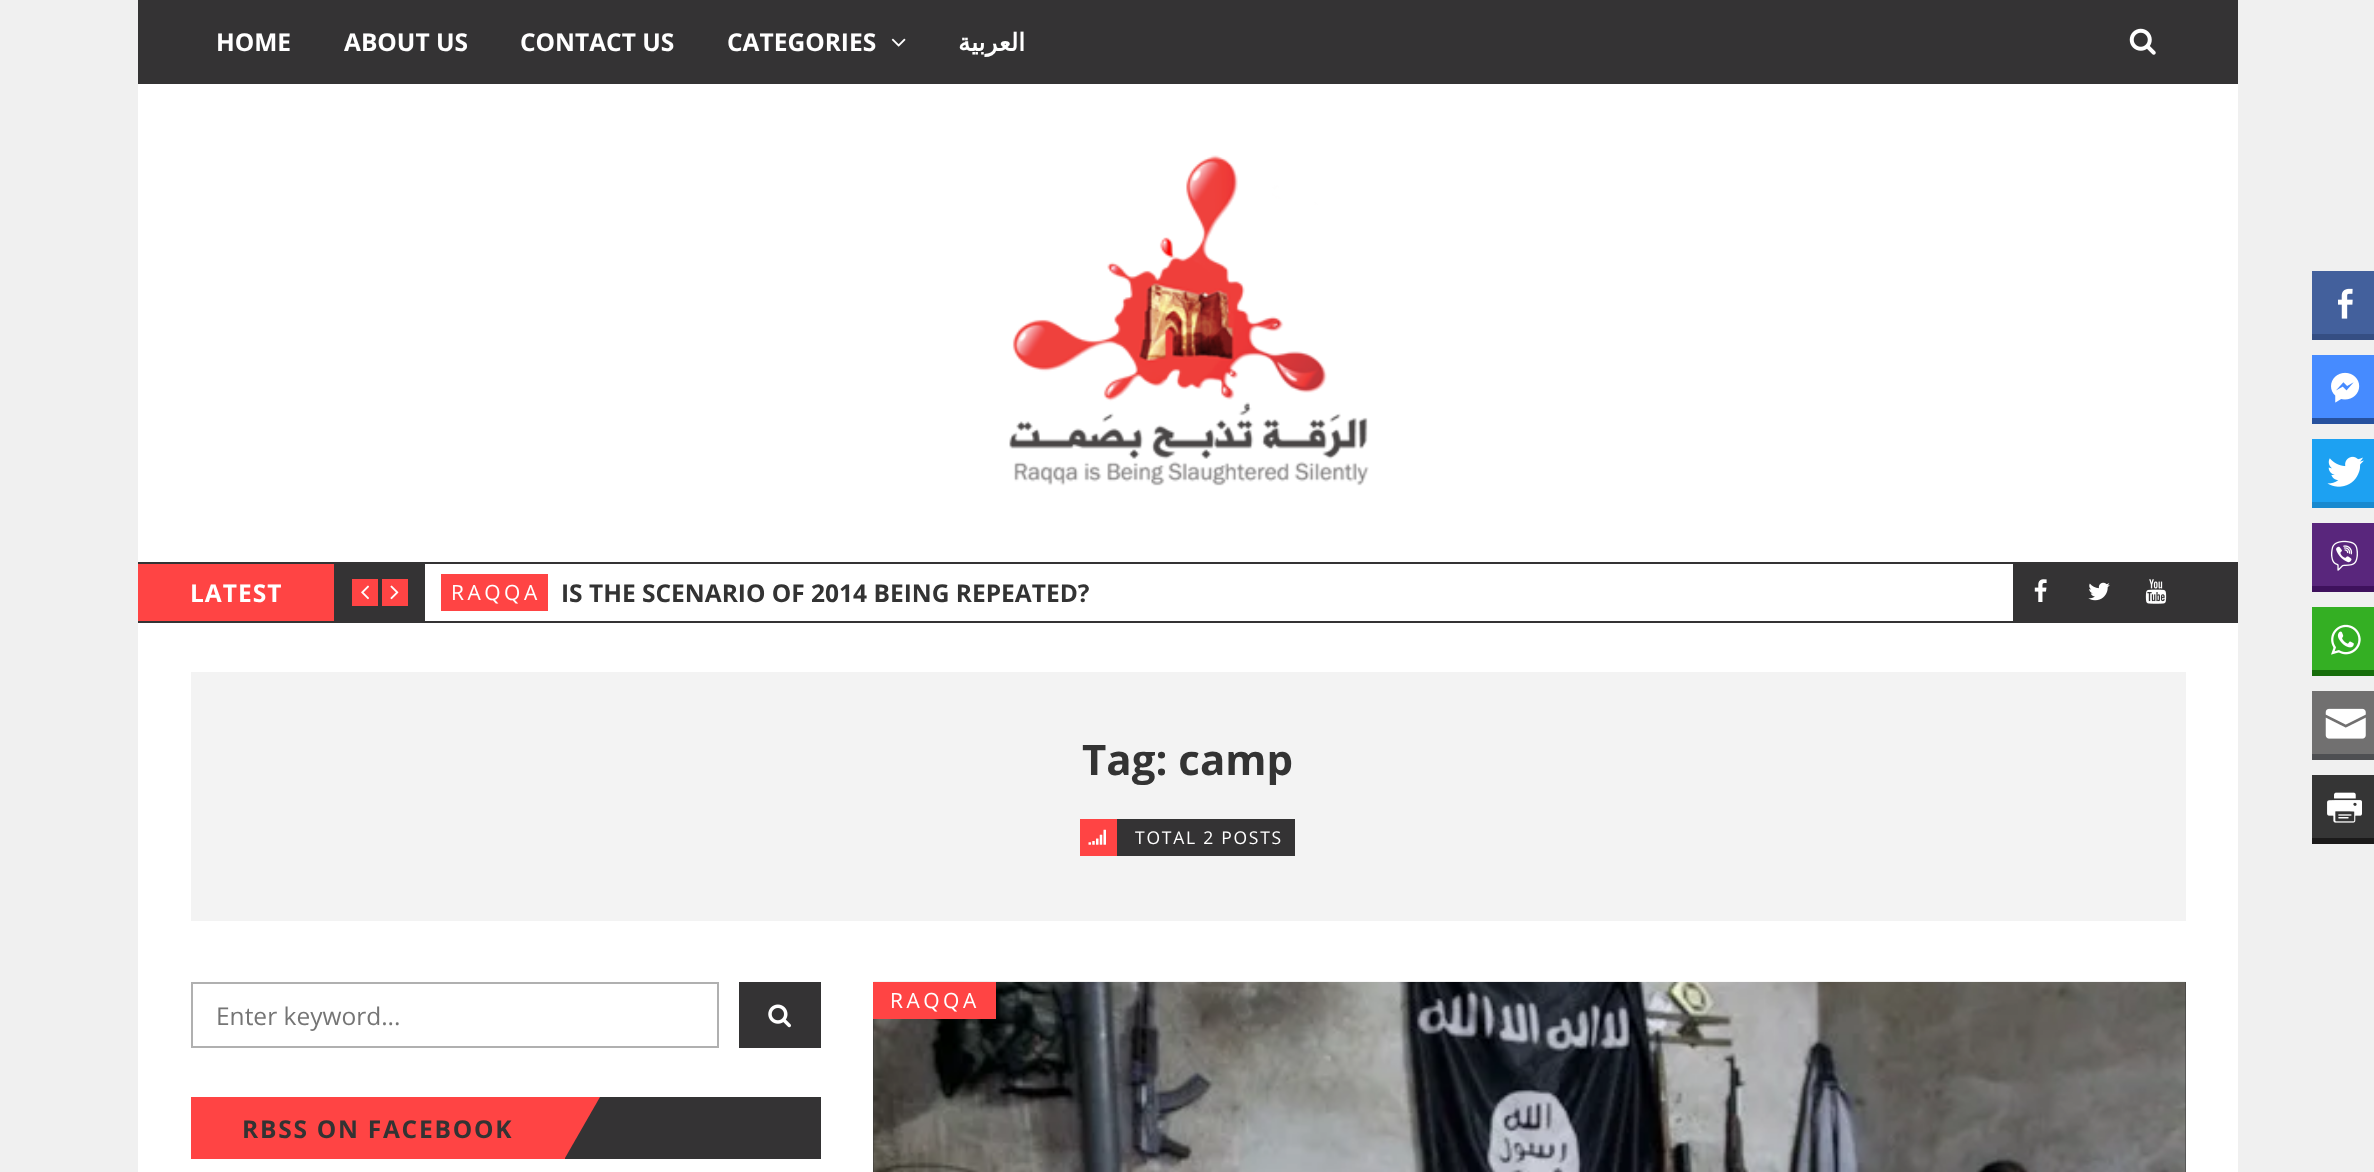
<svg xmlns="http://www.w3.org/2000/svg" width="2374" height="1172">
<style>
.a{font:bold 24.5px Open Sans;fill:#fff}
.b{font:bold 24.5px DejaVu Sans;direction:rtl;fill:#fff}
.c{font:bold 24.5px Open Sans;letter-spacing:1px;fill:#fff}
.d{font:21px Open Sans;letter-spacing:3.5px;fill:#fff}
.e{font:bold 24.5px Open Sans;fill:#333}
.f{font:bold 42px Open Sans;fill:#333}
.g{font:17.5px Open Sans;letter-spacing:1.75px;fill:#fff}
.h{font:24.5px Open Sans;fill:#757575}
.i{font:bold 24.5px Open Sans;letter-spacing:1.75px;fill:#333}
</style>
<rect width="100%" height="100%" fill="#f0f0f0"/>
<path fill="#fff" d="M138 84h2100v1088H138z"/>
<path fill="#343334" d="M138 0h2100v84H138z"/>
<image href="1.png" x="891" y="38" width="15" height="9"/>
<image href="2.png" x="2129" y="28" width="27" height="27"/>
<image href="3.png" x="1009" y="155" width="360" height="331"/>
<path fill="#343334" d="M138 562h2100v2H138z"/>
<path fill="#343334" d="M138 621h2100v2H138z"/>
<path fill="#f44" d="M138 564h196v57H138z"/>
<path fill="#343334" d="M334 564h91v57H334z"/>
<path fill="#f44" d="M352 579h26v27H352z"/>
<image href="4.png" x="361" y="585" width="8" height="15"/>
<path fill="#f44" d="M382 579h26v27H382z"/>
<image href="5.png" x="390" y="585" width="9" height="15"/>
<path fill="#f44" d="M441 574h107v37H441z"/>
<path fill="#343334" d="M2013 564h225v57H2013z"/>
<image href="6.png" x="2034" y="579" width="13" height="23"/>
<image href="7.png" x="2088" y="582" width="22" height="19"/>
<image href="8.png" x="2145" y="579" width="22" height="25"/>
<path fill="#f3f3f3" d="M191 672h1995v249H191z"/>
<path fill="#343334" d="M1117 819h178v37H1117z"/>
<path fill="#f44" d="M1080 819h37v37H1080z"/>
<image href="9.png" x="1088" y="829" width="18" height="16"/>
<path fill="#343334" d="M873 982h1313v190H873z"/>
<image href="10.png" x="873" y="981" width="1313" height="191"/>
<path fill="#f44" d="M873 982h123v37H873z"/>
<path fill="none" stroke="#b0b0b0" stroke-width="2" d="M192 983h526v64H192z"/>
<path fill="#343334" d="M739 982h82v66H739z"/>
<image href="11.png" x="768" y="1004" width="23" height="24"/>
<path fill="#343334" d="M565 1097h256v62H565z"/>
<path fill="#f44" d="M191 1097h374v62H191z"/>
<path fill="#f44" d="M565 1097h35l-35 61z"/>
<path fill="#354e83" d="M2312 334v6h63v-63v57z"/>
<path fill="#43609c" d="M2312 271h62v63H2312z"/>
<image href="12.png" x="2338" y="288" width="15" height="31"/>
<path fill="#26519e" d="M2312 418v6h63v-63v57z"/>
<path fill="#468bff" d="M2312 355h62v63H2312z"/>
<image href="13.png" x="2331" y="372" width="29" height="31"/>
<path fill="#1889cf" d="M2312 502v6h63v-63v57z"/>
<path fill="#1da1f2" d="M2312 439h62v63H2312z"/>
<image href="14.png" x="2327" y="456" width="37" height="31"/>
<path fill="#3e115d" d="M2312 586v6h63v-63v57z"/>
<path fill="#59267c" d="M2312 523h62v63H2312z"/>
<image href="15.png" x="2331" y="540" width="27" height="31"/>
<path fill="#176e0b" d="M2312 670v6h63v-63v57z"/>
<path fill="#34af23" d="M2312 607h62v63H2312z"/>
<image href="16.png" x="2331" y="624" width="30" height="31"/>
<path fill="#4e4f52" d="M2312 754v6h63v-63v57z"/>
<path fill="#717070" d="M2312 691h62v63H2312z"/>
<image href="17.png" x="2325" y="708" width="41" height="31"/>
<path fill="#1b1a1a" d="M2312 838v6h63v-63v57z"/>
<path fill="#353535" d="M2312 775h62v63H2312z"/>
<image href="18.png" x="2327" y="792" width="35" height="31"/>
<text class="a" x="216" y="51">HOME</text>
<text class="a" x="344" y="51">ABOUT US</text>
<text class="a" x="520" y="51">CONTACT US</text>
<text class="a" x="727" y="51">CATEGORIES</text>
<text class="b" x="1025" y="51">العربية</text>
<text class="c" x="190" y="602">LATEST</text>
<text class="d" x="451" y="600">RAQQA</text>
<text class="e" x="561" y="602">IS THE SCENARIO OF 2014 BEING REPEATED?</text>
<text class="f" x="1082" y="775">Tag: camp</text>
<text class="g" x="1135" y="844">TOTAL 2 POSTS</text>
<text class="d" x="890" y="1008">RAQQA</text>
<text class="h" x="216" y="1025">Enter keyword...</text>
<text class="i" x="242" y="1138">RBSS ON FACEBOOK</text>
</svg>
